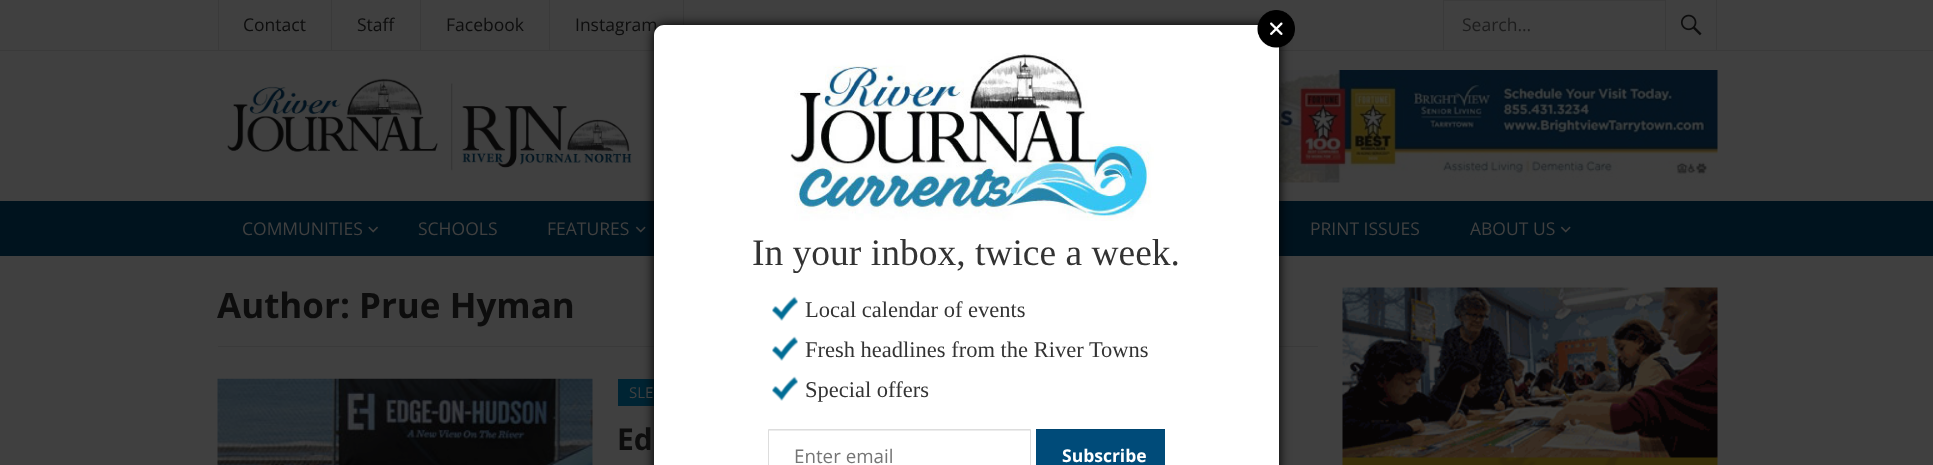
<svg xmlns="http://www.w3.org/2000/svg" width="1933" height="465">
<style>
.a{font:17.5px Open Sans;fill:#0d0d0d}
.b{font:17.5px Open Sans;fill:#1d1d1d}
.c{font:17.5px Open Sans;fill:#404040}
.d{font:bold 35px Open Sans;fill:#0d0d0d}
.e{font:15px Open Sans;fill:#404040}
.f{font:bold 30px Open Sans;fill:#0d0d0d}
.g{font:37.5px Liberation Serif;fill:#333}
.h{font:22.5px Liberation Serif;fill:#333}
.i{font:18.75px Open Sans;fill:#757575}
.j{font:bold 17.5px Open Sans;fill:#fff}
</style>
<rect width="100%" height="100%" fill="#404040"/>
<path fill="#3a3a3a" d="M0 50h1933v1H0z"/>
<path fill="#3a3a3a" d="M218 0h1v50H218z"/>
<path fill="#3a3a3a" d="M331 0h1v50H331z"/>
<path fill="#3a3a3a" d="M420 0h1v50H420z"/>
<path fill="#3a3a3a" d="M549 0h1v50H549z"/>
<path fill="#3a3a3a" d="M683 0h1v25H683z"/>
<path fill="#3a3a3a" d="M1716 0h1v50H1716z"/>
<path fill="#3a3a3a" d="M1443 0h1v50H1443z"/>
<path fill="#3b3b3b" d="M1444 0h224v1H1444z"/>
<path fill="#404040" d="M1666 0h2v1H1666z"/>
<path fill="#3a3a3a" d="M1665 0h1v50H1665z"/>
<image href="1.png" x="1680" y="14" width="22" height="22"/>
<image href="2.png" x="227" y="78" width="405" height="93"/>
<image href="3.png" x="1279" y="70" width="439" height="113"/>
<path fill="#00131e" d="M0 201h1933v55H0z"/>
<image href="4.png" x="368" y="226" width="10" height="7"/>
<image href="5.png" x="635" y="226" width="11" height="7"/>
<image href="5.png" x="1560" y="226" width="11" height="7"/>
<path fill="#3a3a3a" d="M218 346h1100v1H218z"/>
<image href="6.png" x="217" y="378" width="376" height="87"/>
<path fill="#002433" d="M618 379h36v27H618z"/>
<image href="7.png" x="1342" y="287" width="376" height="178"/>
<rect fill="#000" filter="blur(6px)" x="654" y="25" width="625" height="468" rx="10"/>
<text class="a" x="243" y="31">Contact</text>
<text class="a" x="357" y="31">Staff</text>
<text class="a" x="446" y="31">Facebook</text>
<text class="a" x="575" y="31">Instagram</text>
<text class="b" x="1462" y="31">Search...</text>
<text class="c" x="242" y="235">COMMUNITIES</text>
<text class="c" x="418" y="235">SCHOOLS</text>
<text class="c" x="547" y="235">FEATURES</text>
<text class="c" x="1310" y="235">PRINT ISSUES</text>
<text class="c" x="1470" y="235">ABOUT US</text>
<text class="d" x="217" y="318">Author: Prue Hyman</text>
<text class="e" x="629" y="398">SLE</text>
<text class="f" x="617" y="450">Ed</text>
<path fill="#fff" d="M664 25h605c5.5 0 10 4.5 10 10v430h-625v-430c0-5.5 4.5-10 10-10z"/>
<image href="8.png" x="1257" y="10" width="38" height="38"/>
<image href="9.png" x="790" y="53" width="364" height="168"/>
<text class="g" x="752" y="265">In your inbox, twice a week.</text>
<image href="10.png" x="772" y="296" width="26" height="25"/>
<text class="h" x="805" y="317">Local calendar of events</text>
<image href="10.png" x="772" y="336" width="26" height="25"/>
<text class="h" x="805" y="357">Fresh headlines from the River Towns</text>
<image href="10.png" x="772" y="376" width="26" height="25"/>
<text class="h" x="805" y="397">Special offers</text>
<path fill="#ececec" d="M769 430h261v1H769z"/>
<path fill="none" stroke="#ddd" d="M768.5 429.5h262v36H768.5z"/>
<text class="i" x="794" y="463">Enter email</text>
<path fill="#004b79" d="M1036 430h129v35H1036z"/>
<path fill="#004570" d="M1036 429h129v1H1036z"/>
<text class="j" x="1062" y="462">Subscribe</text>
</svg>
